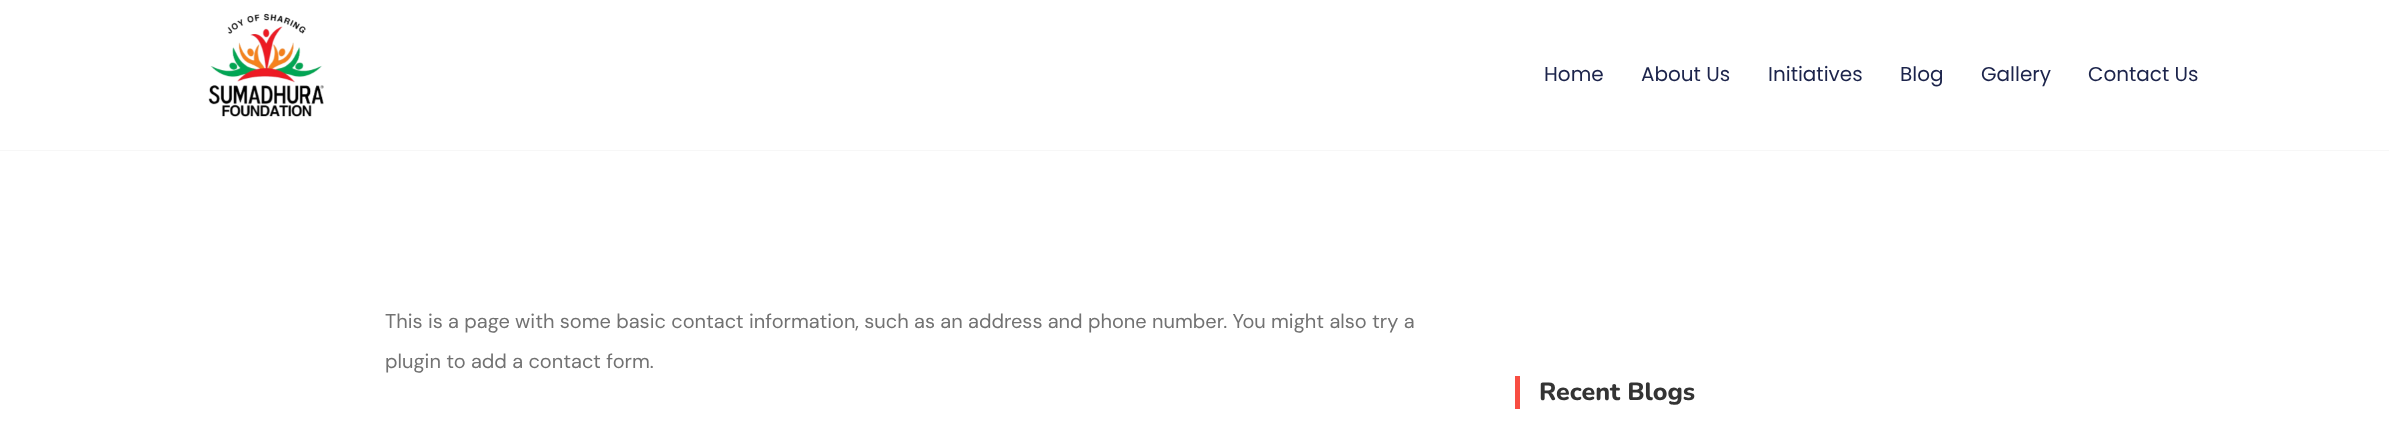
<svg xmlns="http://www.w3.org/2000/svg" width="2389" height="422">
<style>
.a{font:20px Poppins;fill:#1c244b}
.b{font:20px DM Sans;fill:#727272}
.c{font:800 25px Nunito;fill:#343434}
</style>
<rect width="100%" height="100%" fill="#fff"/>
<path fill="#f7f7f7" d="M0 150h2389v1H0z"/>
<image href="1.png" x="208" y="13" width="116" height="104"/>
<path fill="#f84d42" d="M1515 376h5v33H1515z"/>
<text class="a" x="1544" y="81">Home</text>
<text class="a" x="1641" y="81">About Us</text>
<text class="a" x="1768" y="81">Initiatives</text>
<text class="a" x="1900" y="81">Blog</text>
<text class="a" x="1981" y="81">Gallery</text>
<text class="a" x="2088" y="81">Contact Us</text>
<text class="b" x="385" y="328">This is a page with some basic contact information, such as an address and phone number. You might also try a</text>
<text class="b" x="385" y="368">plugin to add a contact form.</text>
<text class="c" x="1539" y="400">Recent Blogs</text>
</svg>
